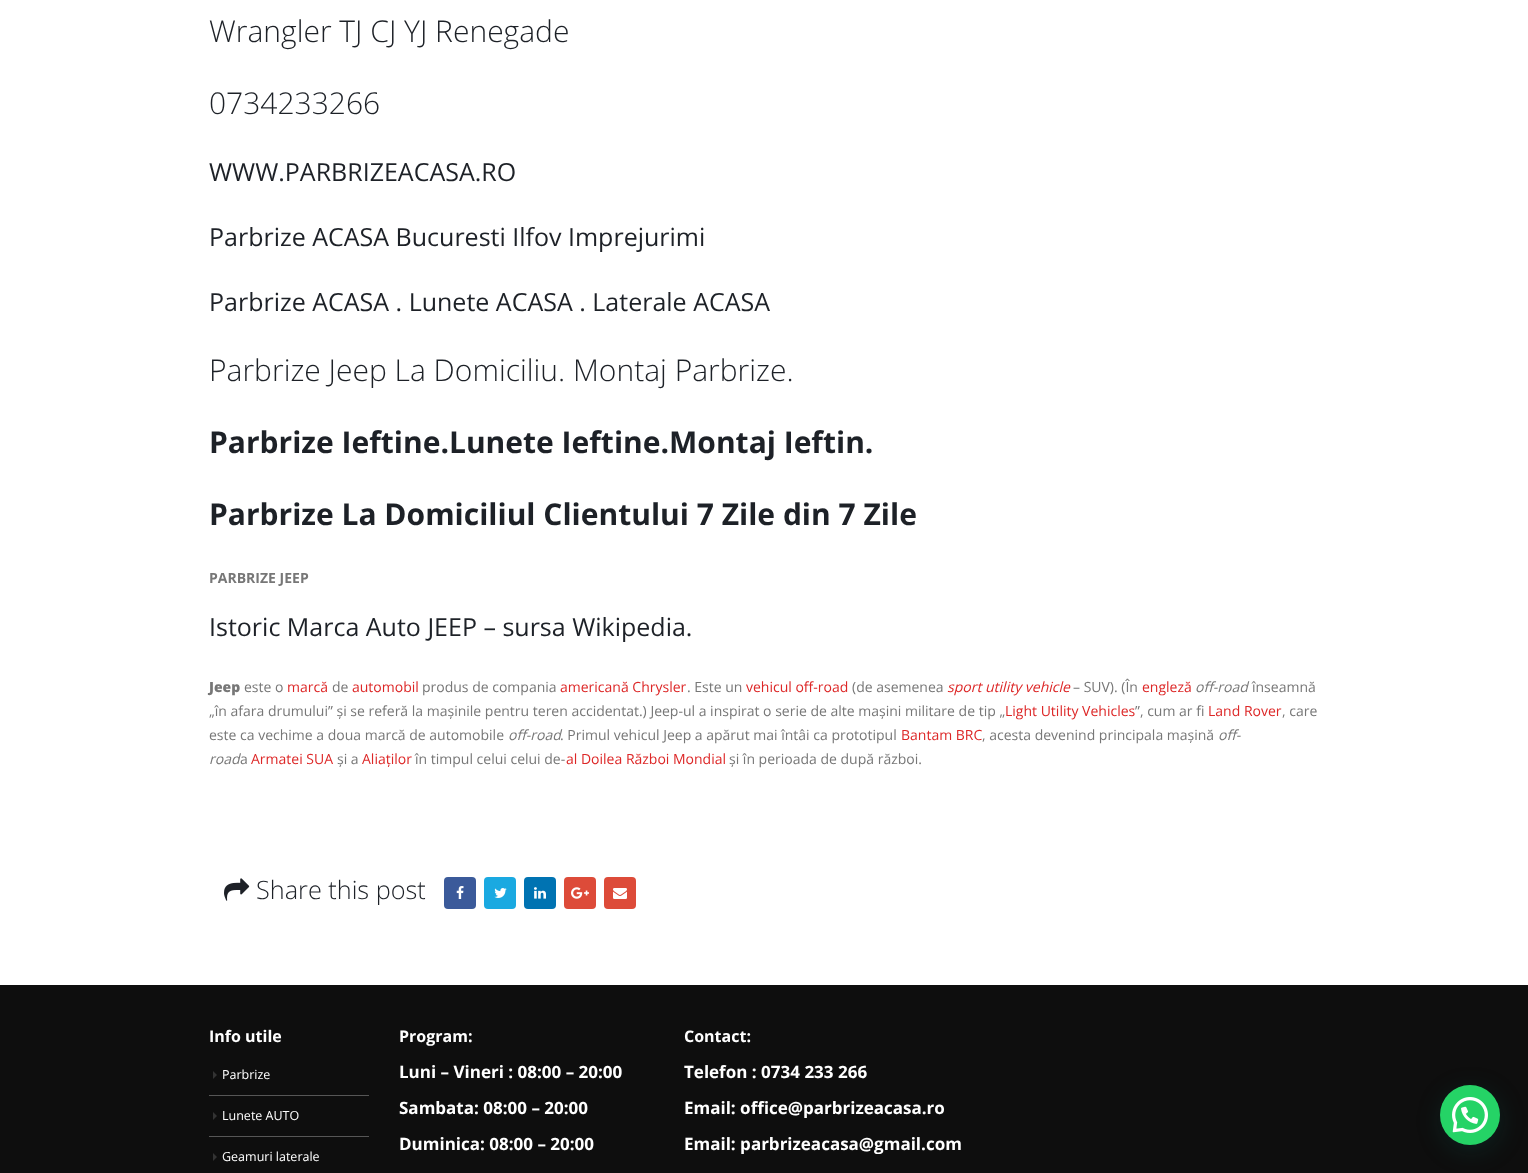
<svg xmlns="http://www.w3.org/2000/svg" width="1528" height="1173">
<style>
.a{font:300 30px Open Sans;fill:#1d2127}
.b{font:25px Open Sans;fill:#1d2127}
.c{font:bold 30px Open Sans;fill:#1d2127}
.d{font:bold 14px Open Sans;fill:#777}
.e{font:800 14px Open Sans;fill:#777}
.f{font:14px Open Sans;fill:#777}
.g{font:14px Open Sans;fill:#dd2727}
.h{font:italic 14px Open Sans;fill:#dd2727}
.i{font:italic 14px Open Sans;fill:#777}
.j{font:300 25.25px Open Sans;fill:#1d2127}
.k{font:bold 16px Open Sans;fill:#fff}
.l{font:12.5px Open Sans;fill:#fff}
.m{font:bold 17px Open Sans;fill:#fff}
</style>
<rect width="100%" height="100%" fill="#fff"/>
<image href="1.png" x="224" y="878" width="26" height="23"/>
<rect fill="#3b5a9a" x="444" y="877" width="32" height="32" rx="4"/>
<image href="2.png" x="456" y="886" width="8" height="13"/>
<rect fill="#1aa9e1" x="484" y="877" width="32" height="32" rx="4"/>
<image href="3.png" x="494" y="888" width="13" height="10"/>
<rect fill="#0073b2" x="524" y="877" width="32" height="32" rx="4"/>
<image href="4.png" x="534" y="887" width="12" height="12"/>
<rect fill="#dd4b39" x="564" y="877" width="32" height="32" rx="4"/>
<image href="5.png" x="571" y="887" width="18" height="12"/>
<rect fill="#dd4b39" x="604" y="877" width="32" height="32" rx="4"/>
<image href="6.png" x="613" y="888" width="14" height="11"/>
<path fill="#0e0e0e" d="M0 985h1528v188H0z"/>
<path fill="#333" d="M213 1079v-8l4 4z"/>
<path fill="#565656" d="M209 1095h160v1H209z"/>
<path fill="#333" d="M213 1120v-8l4 4z"/>
<path fill="#565656" d="M209 1136h160v1H209z"/>
<path fill="#333" d="M213 1161v-8l4 4z"/>
<rect fill="#075e543d" filter="blur(12px)" x="1441" y="1091" width="60" height="60" rx="30"/>
<circle fill="#25d366" cx="1470" cy="1115" r="30"/>
<image href="7.png" x="1452" y="1097" width="36" height="36"/>
<text class="a" x="209" y="42">Wrangler TJ CJ YJ Renegade</text>
<text class="a" x="209" y="114">0734233266</text>
<text class="b" x="209" y="181">WWW.PARBRIZEACASA.RO</text>
<text class="b" x="209" y="246">Parbrize ACASA Bucuresti Ilfov Imprejurimi</text>
<text class="b" x="209" y="311">Parbrize ACASA . Lunete ACASA . Laterale ACASA</text>
<text class="a" x="209" y="381">Parbrize Jeep La Domiciliu. Montaj Parbrize.</text>
<text class="c" x="209" y="453">Parbrize Ieftine.Lunete Ieftine.Montaj Ieftin.</text>
<text class="c" x="209" y="525">Parbrize La Domiciliul Clientului 7 Zile din 7 Zile</text>
<text class="d" x="209" y="583">PARBRIZE JEEP</text>
<text class="b" x="209" y="636">Istoric Marca Auto JEEP – sursa Wikipedia.</text>
<text class="e" x="209" y="692">Jeep</text>
<text class="f" x="244" y="692">este o</text>
<text class="g" x="287" y="692">marcă</text>
<text class="f" x="332" y="692">de</text>
<text class="g" x="352" y="692">automobil</text>
<text class="f" x="422" y="692">produs de compania</text>
<text class="g" x="560" y="692">americană Chrysler</text>
<text class="f" x="687" y="692">. Este un</text>
<text class="g" x="746" y="692">vehicul off-road</text>
<text class="f" x="852" y="692">(de asemenea</text>
<text class="h" x="947" y="692">sport utility vehicle</text>
<text class="f" x="1073" y="692">– SUV). (În</text>
<text class="g" x="1142" y="692">engleză</text>
<text class="i" x="1195" y="692">off-road</text>
<text class="f" x="1252" y="692">înseamnă</text>
<text class="f" x="209" y="716">„în afara drumului” și se referă la mașinile pentru teren accidentat.) Jeep-ul a inspirat o serie de alte mașini militare de tip „</text>
<text class="g" x="1005" y="716">Light Utility Vehicles</text>
<text class="f" x="1135" y="716">”, cum ar fi</text>
<text class="g" x="1208" y="716">Land Rover</text>
<text class="f" x="1282" y="716">, care</text>
<text class="f" x="209" y="740">este ca vechime a doua marcă de automobile</text>
<text class="i" x="508" y="740">off-road</text>
<text class="f" x="560" y="740">. Primul vehicul Jeep a apărut mai întâi ca prototipul</text>
<text class="g" x="901" y="740">Bantam BRC</text>
<text class="f" x="982" y="740">, acesta devenind principala mașină</text>
<text class="i" x="1218" y="740">off-</text>
<text class="i" x="209" y="764">road</text>
<text class="f" x="240" y="764">a</text>
<text class="g" x="251" y="764">Armatei SUA</text>
<text class="f" x="337" y="764">și a</text>
<text class="g" x="362" y="764">Aliaților</text>
<text class="f" x="415" y="764">în timpul celui celui de-</text>
<text class="g" x="566" y="764">al Doilea Război Mondial</text>
<text class="f" x="729" y="764">și în perioada de după război.</text>
<text class="j" x="256" y="899">Share this post</text>
<text class="k" x="209" y="1042">Info utile</text>
<text class="l" x="222" y="1079">Parbrize</text>
<text class="l" x="222" y="1120">Lunete AUTO</text>
<text class="l" x="222" y="1161">Geamuri laterale</text>
<text class="k" x="399" y="1042">Program:</text>
<text class="m" x="399" y="1078">Luni – Vineri : 08:00 – 20:00</text>
<text class="m" x="399" y="1114">Sambata: 08:00 – 20:00</text>
<text class="m" x="399" y="1150">Duminica: 08:00 – 20:00</text>
<text class="k" x="684" y="1042">Contact:</text>
<text class="m" x="684" y="1078">Telefon : 0734 233 266</text>
<text class="m" x="684" y="1114">Email: office@parbrizeacasa.ro</text>
<text class="m" x="684" y="1150">Email: parbrizeacasa@gmail.com</text>
</svg>
